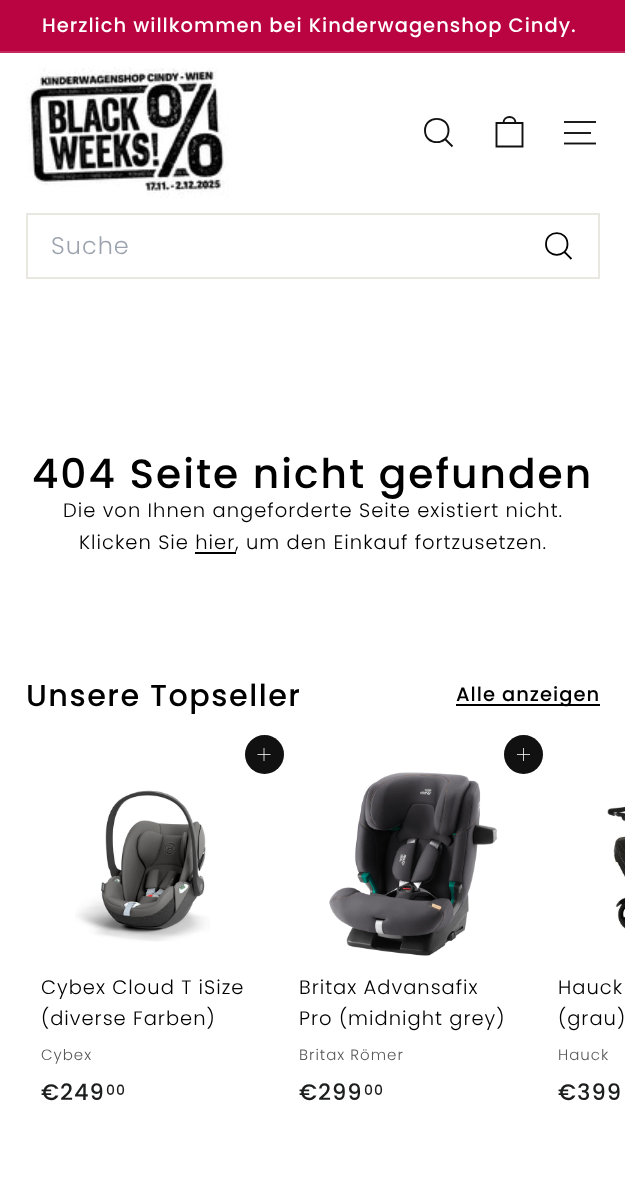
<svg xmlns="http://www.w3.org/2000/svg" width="625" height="1193">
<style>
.a{font:500 19.5px Poppins;letter-spacing:1px;fill:#fff}
.b{font:300 24px Poppins;letter-spacing:1px;fill:#9ca3af}
.c{font:500 40.75px Poppins;letter-spacing:2px;fill:#000}
.d{font:300 19.5px Poppins;letter-spacing:1px;fill:#000}
.e{font:500 30.25px Poppins;letter-spacing:1.5px;fill:#000}
.f{font:500 19.5px Poppins;letter-spacing:1px;fill:#000}
.g{font:300 15px Poppins;letter-spacing:1px;fill:#595959}
.h{font:500 22.5px Poppins;letter-spacing:1px;fill:#1c1d1d}
.i{font:500 14px Poppins;letter-spacing:1px;fill:#1c1d1d}
</style>
<rect width="100%" height="100%" fill="#fff"/>
<path fill="#ba0441" d="M0 0h625v51H0z"/>
<path fill="#c42a5e" d="M0 51h625v2H0z"/>
<image href="1.png" x="26" y="67" width="203" height="131"/>
<path fill="none" stroke="#111" stroke-width="1.9" d="M448.5 130.5c0 15.5-23.5 15.5-23.5 0c0-15.5 23.5-15.5 23.5 0m4 16l-7.5-7.5"/>
<path fill="none" stroke="#111" stroke-width="1.9" d="M503.5 123c0-8 12-8 12 0m-19 0h26v23.5h-26z"/>
<path fill="#1d1d1d" d="M564 121h32v2H564z"/>
<path fill="#1d1d1d" d="M564 132h27v2H564z"/>
<path fill="none" stroke="#111" stroke-width="1.9" d="M564 143.5h32"/>
<path fill="none" stroke="#e8e8e1" stroke-width="2" d="M27 214h572v64H27z"/>
<path fill="none" stroke="#000" stroke-width="1.8" d="M567.5 244c0 14.5-21.5 14.5-21.5 0c0-14.5 21.5-14.5 21.5 0m4 15l-7-7"/>
<path fill="#000" d="M195 552h41v2H195z"/>
<path fill="#000" d="M456 704h144v2H456z"/>
<circle fill="#111" cx="264.5" cy="754.5" r="19.5"/>
<path fill="none" stroke="#fff" stroke-width="0.8" d="M264 748v13m6.5-6.5h-13"/>
<image href="2.png" x="75" y="790" width="135" height="152"/>
<circle fill="#111" cx="523.5" cy="754.5" r="19.5"/>
<path fill="none" stroke="#fff" stroke-width="0.8" d="M523.5 748v13m6.5-6.5h-13"/>
<image href="3.png" x="329" y="772" width="169" height="184"/>
<image href="4.png" x="607" y="806" width="18" height="123"/>
<text class="a" x="42" y="32">Herzlich willkommen bei Kinderwagenshop Cindy.</text>
<text class="b" x="51" y="254">Suche</text>
<text class="c" x="32" y="488">404 Seite nicht gefunden</text>
<text class="d" x="63" y="517">Die von Ihnen angeforderte Seite existiert nicht.</text>
<text class="d" x="79" y="549">Klicken Sie hier, um den Einkauf fortzusetzen.</text>
<text class="e" x="26" y="706">Unsere Topseller</text>
<text class="f" x="456" y="701">Alle anzeigen</text>
<text class="d" x="41" y="994">Cybex Cloud T iSize</text>
<text class="d" x="41" y="1025">(diverse Farben)</text>
<text class="g" x="41" y="1060">Cybex</text>
<text class="h" x="41" y="1100">€249</text>
<text class="i" x="106" y="1095">00</text>
<text class="d" x="299" y="994">Britax Advansafix</text>
<text class="d" x="299" y="1025">Pro (midnight grey)</text>
<text class="g" x="299" y="1060">Britax Römer</text>
<text class="h" x="299" y="1100">€299</text>
<text class="i" x="364" y="1095">00</text>
<text class="d" x="558" y="994">Hauck</text>
<text class="d" x="558" y="1025">(grau)</text>
<text class="g" x="558" y="1060">Hauck</text>
<text class="h" x="558" y="1100">€399</text>
</svg>
